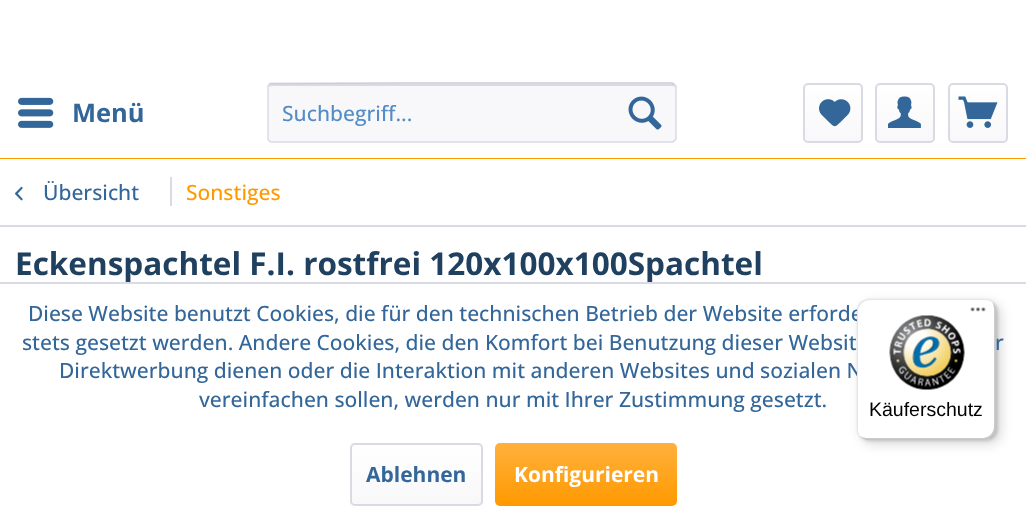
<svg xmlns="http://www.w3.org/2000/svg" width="1026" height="520">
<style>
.a{font:bold 25.5px Open Sans;fill:#369}
.b{font:500 21px Open Sans;fill:#538cc6}
.c{font:500 21px Open Sans;fill:#369}
.d{font:500 21px Open Sans;fill:#f90}
.e{font:bold 31.5px Open Sans;fill:#204060}
.f{font:bold 21px Open Sans;fill:#369}
.g{font:bold 21px Open Sans;fill:#fff}
.h{font:19.5px Liberation Sans;fill:#000}
</style>
<defs>
<linearGradient id="g1" gradientUnits="userSpaceOnUse" x1="833" y1="84" x2="833" y2="141"><stop offset="0" stop-color="#fff"/><stop offset="1" stop-color="#f8f8fa"/></linearGradient>
<linearGradient id="g2" gradientUnits="userSpaceOnUse" x1="905" y1="84" x2="905" y2="141"><stop offset="0" stop-color="#fff"/><stop offset="1" stop-color="#f8f8fa"/></linearGradient>
<linearGradient id="g3" gradientUnits="userSpaceOnUse" x1="978" y1="84" x2="978" y2="141"><stop offset="0" stop-color="#fff"/><stop offset="1" stop-color="#f8f8fa"/></linearGradient>
<linearGradient id="g4" gradientUnits="userSpaceOnUse" x1="416" y1="444" x2="416" y2="504"><stop offset="0" stop-color="#fff"/><stop offset="1" stop-color="#f8f8fa"/></linearGradient>
<linearGradient id="g5" gradientUnits="userSpaceOnUse" x1="586" y1="443" x2="586" y2="506"><stop offset="0" stop-color="#ffb13d"/><stop offset="1" stop-color="#f90"/></linearGradient>
</defs>
<rect width="100%" height="100%" fill="#fff"/>
<path fill="#f90" d="M0 158h1026v1H0z"/>
<image href="1.png" x="18" y="97" width="36" height="31"/>
<rect fill="#f8f8fa" x="267" y="83" width="410" height="60" rx="5"/>
<path fill="#dadae5" d="M272 86h400c2 0 3 1 3 2c0-2-1-4-3-4h-400c-2 0-3 1-3 3z"/>
<path fill="none" stroke="#cbcbdb" stroke-width="1.5" d="M269 84.5l1.5-1l134.5-.5h267l2.5 1.5"/>
<path fill="none" stroke="#dadae5" stroke-width="1.5" d="M674.5 84.5c1 .5 1.5 1.5 1.5 2.5v51c0 1-.5 2-1.5 2.5c-.5 1-1.5 1.5-2.5 1.5h-400.5c-1 0-2-.5-2.5-1.5c-1-.5-1-1.5-1-2.5v-51c0-1 0-2 1-2.5"/>
<image href="2.png" x="628" y="96" width="34" height="34"/>
<rect fill="url(#g1)" x="804" y="84" width="57" height="57" rx="3"/>
<rect fill="none" stroke="#dadae5" stroke-width="2" x="804" y="84" width="58" height="58" rx="4"/>
<image href="3.png" x="819" y="99" width="32" height="28"/>
<rect fill="url(#g2)" x="876" y="84" width="57" height="57" rx="3"/>
<rect fill="none" stroke="#dadae5" stroke-width="2" x="876" y="84" width="58" height="58" rx="4"/>
<image href="4.png" x="888" y="96" width="33" height="32"/>
<rect fill="url(#g3)" x="950" y="84" width="57" height="57" rx="3"/>
<rect fill="none" stroke="#dadae5" stroke-width="2" x="949" y="84" width="58" height="58" rx="4"/>
<image href="5.png" x="958" y="96" width="40" height="32"/>
<path fill="#dadae5" d="M0 225h1026v2H0z"/>
<image href="6.png" x="15" y="186" width="8" height="15"/>
<path fill="#dadae5" d="M170 177h2v29H170z"/>
<rect fill="url(#g4)" x="351" y="444" width="131" height="60" rx="3"/>
<rect fill="none" stroke="#dadae5" stroke-width="2" x="351" y="444" width="131" height="61" rx="4"/>
<rect fill="url(#g5)" x="495" y="443" width="182" height="63" rx="5"/>
<rect fill="#00000026" filter="blur(6px)" x="861" y="303" width="140" height="141" rx="12"/>
<rect fill="#00000026" filter="blur(1.5px)" x="858" y="300" width="140" height="141" rx="12"/>
<text class="a" x="72" y="122">Menü</text>
<text class="b" x="282" y="121">Suchbegriff...</text>
<text class="c" x="43" y="200">Übersicht</text>
<text class="d" x="186" y="200">Sonstiges</text>
<text class="e" x="15" y="275">Eckenspachtel F.I. rostfrei 120x100x100Spachtel</text>
<path fill="#dadae5" d="M0 282h1026v2H0z"/>
<text class="c" x="28" y="321">Diese Website benutzt Cookies, die für den technischen Betrieb der Website erforde</text>
<text class="c" x="22" y="350">stets gesetzt werden. Andere Cookies, die den Komfort bei Benutzung dieser Websit</text>
<text class="c" x="995" y="350">r</text>
<text class="c" x="59" y="378">Direktwerbung dienen oder die Interaktion mit anderen Websites und sozialen N</text>
<text class="c" x="199" y="407">vereinfachen sollen, werden nur mit Ihrer Zustimmung gesetzt.</text>
<text class="f" x="366" y="482">Ablehnen</text>
<text class="g" x="514" y="482">Konfigurieren</text>
<rect fill="#fff" x="857" y="299" width="139" height="141" rx="12"/>
<path fill="#0000001a" d="M870 300h116l5 1c-2-1-5-2-7-2h-115c-7 0-12 5-12 12v117c0 3 1 6 3 8c-1-2-2-4-2-7v-117c0-7 5-12 12-12z"/>
<path fill="#00000033" d="M860 436c2 2 5 4 9 4h115c7 0 12-5 12-12v-117c0-4-2-7-4-9c1 2 2 4 2 7v117c0 7-5 12-12 12h-115c-3 0-5-1-7-2z"/>
<path fill="#32323233" d="M860 436c2 2 5 4 9 4h115c7 0 12-5 12-12v-117c0-3-1-6-3-8c1 2 2 4 2 7v117c0 6-5 12-12 12h-115c-3 0-6-1-8-3z"/>
<path fill="#ffffff4d" d="M860 436c2 2 5 4 9 4h115c7 0 12-5 12-12v-117c0-3-1-6-3-8c1 2 2 4 2 7v117c0 6-5 12-12 12h-115c-3 0-6-1-8-3z"/>
<image href="7.png" x="970" y="307" width="16" height="5"/>
<image href="8.png" x="889" y="315" width="76" height="75"/>
<text class="h" x="869" y="416">Käuferschutz</text>
</svg>
